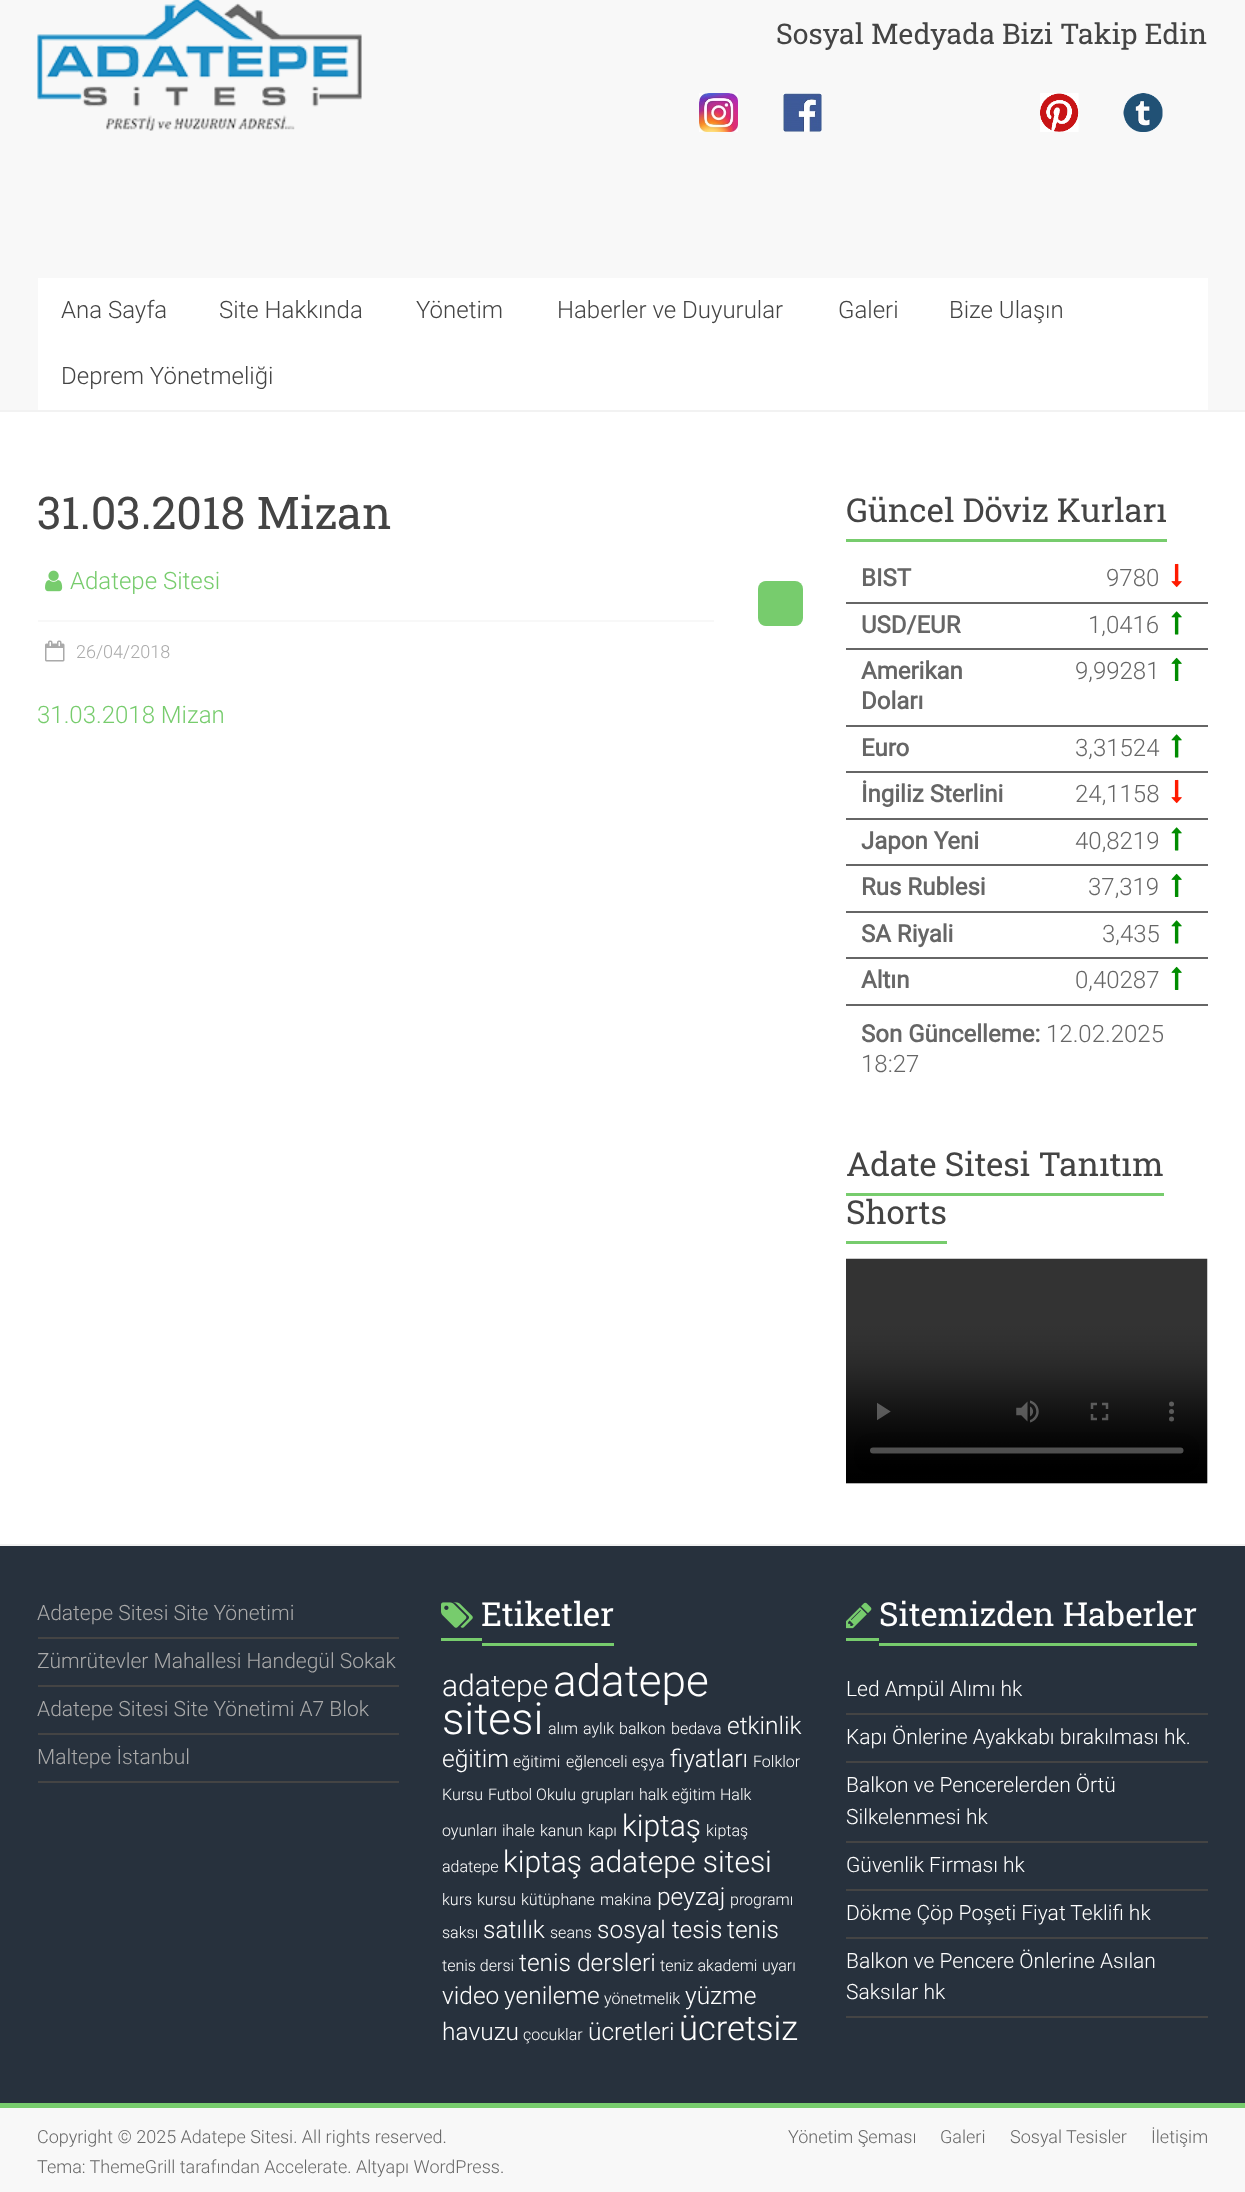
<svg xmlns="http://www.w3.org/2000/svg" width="1245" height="2192">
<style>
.a{font:28.5px Roboto Slab;fill:#444}
.b{font:300 24px Roboto;fill:#444}
.c{font:45px Roboto Slab;fill:#444}
.d{font:300 24px Roboto;fill:#77cc6d}
.e{font:300 18px Roboto;fill:#aaa}
.f{font:33px Roboto Slab;fill:#444}
.g{font:bold 24px Roboto;fill:#666}
.h{font:300 24px Roboto;fill:#666}
.i{font:300 21px Roboto;fill:#aaa}
.j{font:33px Roboto Slab;fill:#fff}
.k{font:300 30px Roboto;fill:#fff}
.l{font:300 44px Roboto;fill:#fff}
.m{font:300 16px Roboto;fill:#fff}
.n{font:300 24.5px Roboto;fill:#fff}
.o{font:300 34.5px Roboto;fill:#fff}
.p{font:300 21px Roboto;fill:#fff}
.q{font:300 18px Roboto;fill:#666}
</style>
<rect width="100%" height="100%" fill="#fff"/>
<path fill="#f8f8f8" d="M0 0h1245v410H0z"/>
<path fill="#f2f2f2" d="M0 410h1245v2H0z"/>
<image href="1.png" x="37" y="0" width="325" height="131"/>
<image href="2.png" x="699" y="93" width="39" height="39"/>
<image href="3.png" x="783" y="93" width="39" height="39"/>
<image href="4.png" x="1040" y="93" width="39" height="39"/>
<image href="5.png" x="1123" y="93" width="40" height="39"/>
<path fill="#fff" d="M38 278h1170v132H38z"/>
<image href="6.png" x="45" y="570" width="18" height="22"/>
<path fill="#f8f8f8" d="M38 620h676v2H38z"/>
<rect fill="#77cc6d" x="758" y="581" width="45" height="45" rx="8"/>
<image href="7.png" x="45" y="640" width="20" height="22"/>
<path fill="#77cc6d" d="M846 539h321v3H846z"/>
<path fill="#666" d="M846 602h362v2H846z"/>
<image href="8.png" x="1171" y="563" width="11" height="25"/>
<path fill="#666" d="M846 648h362v2H846z"/>
<image href="9.png" x="1171" y="611" width="11" height="24"/>
<path fill="#666" d="M846 725h362v2H846z"/>
<image href="10.png" x="1171" y="657" width="11" height="24"/>
<path fill="#666" d="M846 771h362v2H846z"/>
<image href="9.png" x="1171" y="734" width="11" height="24"/>
<path fill="#666" d="M846 818h362v2H846z"/>
<image href="8.png" x="1171" y="779" width="11" height="25"/>
<path fill="#666" d="M846 864h362v2H846z"/>
<image href="9.png" x="1171" y="827" width="11" height="24"/>
<path fill="#666" d="M846 911h362v2H846z"/>
<image href="10.png" x="1171" y="873" width="11" height="24"/>
<path fill="#666" d="M846 957h362v2H846z"/>
<image href="9.png" x="1171" y="920" width="11" height="24"/>
<path fill="#666" d="M846 1004h362v2H846z"/>
<image href="10.png" x="1171" y="966" width="11" height="24"/>
<path fill="#77cc6d" d="M846 1193h318v3H846z"/>
<path fill="#77cc6d" d="M846 1241h101v3H846z"/>
<image href="11.png" x="846" y="1258" width="362" height="226"/>
<path fill="#27313d" d="M0 1546h1245v557H0z"/>
<path fill="#f2f2f2" d="M0 1544h1245v2H0z"/>
<path fill="#444" d="M38 1637h361v2H38z"/>
<path fill="#444" d="M38 1685h361v2H38z"/>
<path fill="#444" d="M38 1733h361v2H38z"/>
<path fill="#444" d="M38 1781h361v2H38z"/>
<image href="12.png" x="441" y="1602" width="32" height="26"/>
<path fill="#77cc6d" d="M441 1638h41v3H441z"/>
<path fill="#77cc6d" d="M482 1643h132v3H482z"/>
<image href="13.png" x="846" y="1602" width="26" height="27"/>
<path fill="#77cc6d" d="M846 1638h33v3H846z"/>
<path fill="#77cc6d" d="M879 1643h318v3H879z"/>
<path fill="#444" d="M846 1713h362v2H846z"/>
<path fill="#444" d="M846 1761h362v2H846z"/>
<path fill="#444" d="M846 1841h362v2H846z"/>
<path fill="#444" d="M846 1889h362v2H846z"/>
<path fill="#444" d="M846 1937h362v2H846z"/>
<path fill="#444" d="M846 2016h362v2H846z"/>
<path fill="#f8f8f8" d="M0 2108h1245v84H0z"/>
<path fill="#77cc6d" d="M0 2103h1245v5H0z"/>
<text class="a" x="776" y="44">Sosyal Medyada Bizi Takip Edin</text>
<text class="b" x="61" y="318">Ana Sayfa</text>
<text class="b" x="219" y="318">Site Hakkında</text>
<text class="b" x="416" y="318">Yönetim</text>
<text class="b" x="557" y="318">Haberler ve Duyurular</text>
<text class="b" x="838" y="318">Galeri</text>
<text class="b" x="949" y="318">Bize Ulaşın</text>
<text class="b" x="61" y="384">Deprem Yönetmeliği</text>
<text class="c" x="37" y="529">31.03.2018 Mizan</text>
<text class="d" x="70" y="589">Adatepe Sitesi</text>
<text class="e" x="76" y="658">26/04/2018</text>
<text class="d" x="37" y="723">31.03.2018 Mizan</text>
<text class="f" x="846" y="522">Güncel Döviz Kurları</text>
<text class="g" x="861" y="586">BIST</text>
<text class="h" x="1106" y="586">9780</text>
<text class="g" x="861" y="633">USD/EUR</text>
<text class="h" x="1088" y="633">1,0416</text>
<text class="g" x="861" y="679">Amerikan</text>
<text class="g" x="861" y="709">Doları</text>
<text class="h" x="1075" y="679">9,99281</text>
<text class="g" x="861" y="756">Euro</text>
<text class="h" x="1075" y="756">3,31524</text>
<text class="g" x="861" y="802">İngiliz Sterlini</text>
<text class="h" x="1075" y="802">24,1158</text>
<text class="g" x="861" y="849">Japon Yeni</text>
<text class="h" x="1075" y="849">40,8219</text>
<text class="g" x="861" y="895">Rus Rublesi</text>
<text class="h" x="1088" y="895">37,319</text>
<text class="g" x="861" y="942">SA Riyali</text>
<text class="h" x="1102" y="942">3,435</text>
<text class="g" x="861" y="988">Altın</text>
<text class="h" x="1075" y="988">0,40287</text>
<text class="g" x="861" y="1042">Son Güncelleme:</text>
<text class="h" x="1046" y="1042">12.02.2025</text>
<text class="h" x="861" y="1072">18:27</text>
<text class="f" x="846" y="1176">Adate Sitesi Tanıtım</text>
<text class="f" x="846" y="1224">Shorts</text>
<text class="i" x="37" y="1620">Adatepe Sitesi Site Yönetimi</text>
<text class="i" x="37" y="1668">Zümrütevler Mahallesi Handegül Sokak</text>
<text class="i" x="37" y="1716">Adatepe Sitesi Site Yönetimi A7 Blok</text>
<text class="i" x="37" y="1764">Maltepe İstanbul</text>
<text class="j" x="481" y="1626">Etiketler</text>
<text class="k" x="442" y="1696">adatepe</text>
<text class="l" x="553" y="1696">adatepe</text>
<text class="l" x="442" y="1734">sitesi</text>
<text class="m" x="548" y="1734">alım</text>
<text class="m" x="583" y="1734">aylık</text>
<text class="m" x="619" y="1734">balkon</text>
<text class="m" x="671" y="1734">bedava</text>
<text class="n" x="727" y="1734">etkinlik</text>
<text class="n" x="442" y="1767">eğitim</text>
<text class="m" x="513" y="1767">eğitimi</text>
<text class="m" x="566" y="1767">eğlenceli</text>
<text class="m" x="632" y="1767">eşya</text>
<text class="n" x="670" y="1767">fiyatları</text>
<text class="m" x="753" y="1767">Folklor</text>
<text class="m" x="442" y="1800">Kursu</text>
<text class="m" x="488" y="1800">Futbol Okulu</text>
<text class="m" x="581" y="1800">grupları</text>
<text class="m" x="639" y="1800">halk eğitim</text>
<text class="m" x="720" y="1800">Halk</text>
<text class="m" x="442" y="1836">oyunları</text>
<text class="m" x="502" y="1836">ihale</text>
<text class="m" x="540" y="1836">kanun</text>
<text class="m" x="588" y="1836">kapı</text>
<text class="k" x="622" y="1836">kiptaş</text>
<text class="m" x="706" y="1836">kiptaş</text>
<text class="m" x="442" y="1872">adatepe</text>
<text class="k" x="503" y="1872">kiptaş adatepe sitesi</text>
<text class="m" x="442" y="1905">kurs</text>
<text class="m" x="477" y="1905">kursu</text>
<text class="m" x="521" y="1905">kütüphane</text>
<text class="m" x="600" y="1905">makina</text>
<text class="n" x="657" y="1905">peyzaj</text>
<text class="m" x="730" y="1905">programı</text>
<text class="m" x="442" y="1938">saksı</text>
<text class="n" x="483" y="1938">satılık</text>
<text class="m" x="550" y="1938">seans</text>
<text class="n" x="597" y="1938">sosyal tesis</text>
<text class="n" x="727" y="1938">tenis</text>
<text class="m" x="442" y="1971">tenis dersi</text>
<text class="n" x="519" y="1971">tenis dersleri</text>
<text class="m" x="660" y="1971">teniz akademi</text>
<text class="m" x="762" y="1971">uyarı</text>
<text class="n" x="442" y="2004">video</text>
<text class="n" x="504" y="2004">yenileme</text>
<text class="m" x="604" y="2004">yönetmelik</text>
<text class="n" x="685" y="2004">yüzme</text>
<text class="n" x="442" y="2040">havuzu</text>
<text class="m" x="523" y="2040">çocuklar</text>
<text class="n" x="588" y="2040">ücretleri</text>
<text class="o" x="679" y="2040">ücretsiz</text>
<text class="j" x="879" y="1626">Sitemizden Haberler</text>
<text class="p" x="846" y="1696">Led Ampül Alımı hk</text>
<text class="p" x="846" y="1744">Kapı Önlerine Ayakkabı bırakılması hk.</text>
<text class="p" x="846" y="1792">Balkon ve Pencerelerden Örtü</text>
<text class="p" x="846" y="1824">Silkelenmesi hk</text>
<text class="p" x="846" y="1872">Güvenlik Firması hk</text>
<text class="p" x="846" y="1920">Dökme Çöp Poşeti Fiyat Teklifi hk</text>
<text class="p" x="846" y="1968">Balkon ve Pencere Önlerine Asılan</text>
<text class="p" x="846" y="1999">Saksılar hk</text>
<text class="q" x="37" y="2143">Copyright © 2025 Adatepe Sitesi. All rights reserved.</text>
<text class="q" x="37" y="2173">Tema: ThemeGrill tarafından Accelerate. Altyapı WordPress.</text>
<text class="q" x="788" y="2143">Yönetim Şeması</text>
<text class="q" x="940" y="2143">Galeri</text>
<text class="q" x="1010" y="2143">Sosyal Tesisler</text>
<text class="q" x="1151" y="2143">İletişim</text>
</svg>
